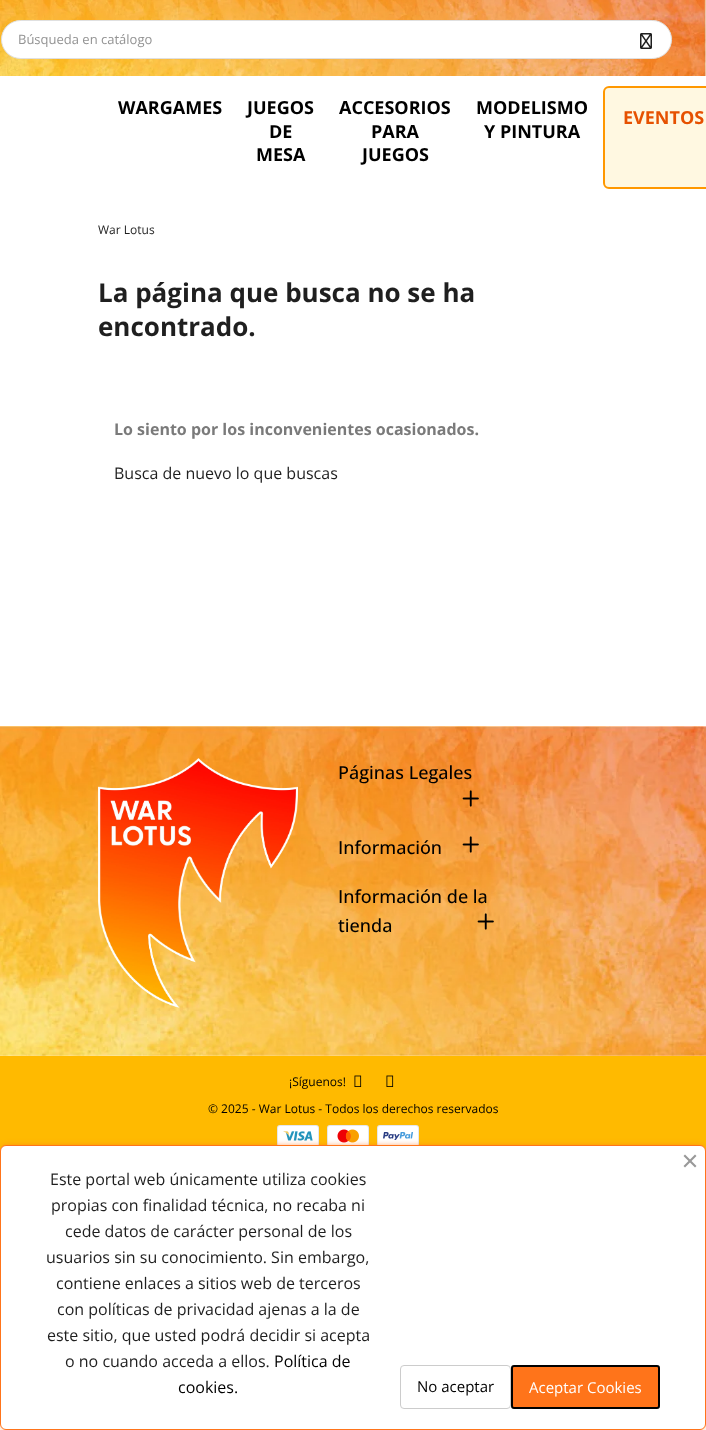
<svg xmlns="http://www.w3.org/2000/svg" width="706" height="1430">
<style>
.a{font:13px Open Sans;fill:#939393}
.b{font:bold 18px Open Sans;fill:#000}
.c{font:bold 18px Open Sans;fill:#e65100}
.d{font:12px Open Sans;fill:#1f1f1f}
.e{font:bold 26px Open Sans;fill:#1f1f1f}
.f{font:bold 16px Open Sans;fill:#7a7a7a}
.g{font:16px Open Sans;fill:#1f1f1f}
.h{font:500 18px Open Sans;fill:#000}
.i{font:12px Open Sans;fill:#000}
.j{font:16px Open Sans;fill:#000}
.k{font:15px Open Sans;fill:#000}
.l{font:15px Open Sans;fill:#fff}
</style>
<rect width="100%" height="100%" fill="#fff"/>
<image href="1.png" x="0" y="0" width="706" height="76"/>
<rect fill="#fff" stroke="#e0e0e0" x="1.5" y="20.5" width="670" height="38" rx="19"/>
<image href="2.png" x="640" y="33" width="12" height="16"/>
<rect fill="#fff8e1" stroke="#ff9800" stroke-width="2" x="604" y="87" width="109" height="101" rx="5"/>
<path fill="#ffba00" d="M0 1056h706v95H0z"/>
<image href="3.png" x="0" y="726" width="706" height="330"/>
<image href="4.png" x="98" y="758" width="200" height="250"/>
<image href="5.png" x="462" y="790" width="17" height="17"/>
<image href="6.png" x="462" y="836" width="17" height="17"/>
<image href="7.png" x="477" y="913" width="17" height="17"/>
<image href="8.png" x="354" y="1075" width="8" height="12"/>
<image href="8.png" x="386" y="1075" width="8" height="12"/>
<rect fill="#e4e7ee" filter="blur(0.5px)" x="277" y="1125" width="42" height="22" rx="3"/>
<rect fill="#fff" x="278" y="1126" width="40" height="20" rx="2"/>
<image href="9.png" x="283" y="1131" width="30" height="10"/>
<rect fill="#e4e7ee" filter="blur(0.5px)" x="327" y="1125" width="42" height="22" rx="3"/>
<rect fill="#fff" x="328" y="1126" width="40" height="20" rx="2"/>
<image href="10.png" x="337" y="1129" width="22" height="14"/>
<rect fill="#e4e7ee" filter="blur(0.5px)" x="377" y="1125" width="42" height="22" rx="3"/>
<rect fill="#fff" x="378" y="1126" width="40" height="20" rx="2"/>
<image href="11.png" x="383" y="1132" width="30" height="8"/>
<rect fill="#ff741a" filter="blur(3.5px)" x="2" y="1147" width="702" height="281" rx="4"/>
<rect fill="#fff" stroke="#ff741a" x="0.5" y="1145.5" width="705" height="284" rx="5.5"/>
<path fill="#999" d="M683.5 1166l11.5-11.5l1.5 1.5l-11.5 11.5z"/>
<path fill="#999" d="M685 1154.5l11.5 11.5l-1.5 1.5l-11.5-11.5z"/>
<rect fill="none" stroke="#ccc" x="400.5" y="1365.5" width="110" height="43" rx="3.5"/>
<rect fill="#ff741a" stroke="#000" stroke-width="2" x="512" y="1366" width="147" height="42" rx="2"/>
<text class="a" x="18" y="44">Búsqueda en catálogo</text>
<text class="b" x="118" y="114">WARGAMES</text>
<text class="b" x="247" y="114">JUEGOS</text>
<text class="b" x="269" y="138">DE</text>
<text class="b" x="256" y="161">MESA</text>
<text class="b" x="339" y="114">ACCESORIOS</text>
<text class="b" x="371" y="138">PARA</text>
<text class="b" x="362" y="161">JUEGOS</text>
<text class="b" x="476" y="114">MODELISMO</text>
<text class="b" x="484" y="138">Y PINTURA</text>
<text class="c" x="623" y="124">EVENTOS</text>
<text class="d" x="98" y="234">War Lotus</text>
<text class="e" x="98" y="302">La página que busca no se ha</text>
<text class="e" x="98" y="336">encontrado.</text>
<text class="f" x="114" y="435">Lo siento por los inconvenientes ocasionados.</text>
<text class="g" x="114" y="479">Busca de nuevo lo que buscas</text>
<text class="h" x="338" y="779">Páginas Legales</text>
<text class="h" x="338" y="854">Información</text>
<text class="h" x="338" y="903">Información de la</text>
<text class="h" x="338" y="932">tienda</text>
<text class="i" x="289" y="1086">¡Síguenos!</text>
<text class="i" x="208" y="1113">© 2025 - War Lotus - Todos los derechos reservados</text>
<text class="g" x="50" y="1185">Este portal web únicamente utiliza cookies</text>
<text class="g" x="51" y="1211">propias con finalidad técnica, no recaba ni</text>
<text class="g" x="65" y="1237">cede datos de carácter personal de los</text>
<text class="g" x="46" y="1263">usuarios sin su conocimiento. Sin embargo,</text>
<text class="g" x="56" y="1289">contiene enlaces a sitios web de terceros</text>
<text class="g" x="57" y="1315">con políticas de privacidad ajenas a la de</text>
<text class="g" x="47" y="1341">este sitio, que usted podrá decidir si acepta</text>
<text class="g" x="65" y="1367">o no cuando acceda a ellos.</text>
<text class="j" x="274" y="1367">Política de</text>
<text class="j" x="178" y="1393">cookies.</text>
<text class="k" x="417" y="1392">No aceptar</text>
<text class="l" x="529" y="1393">Aceptar Cookies</text>
</svg>
